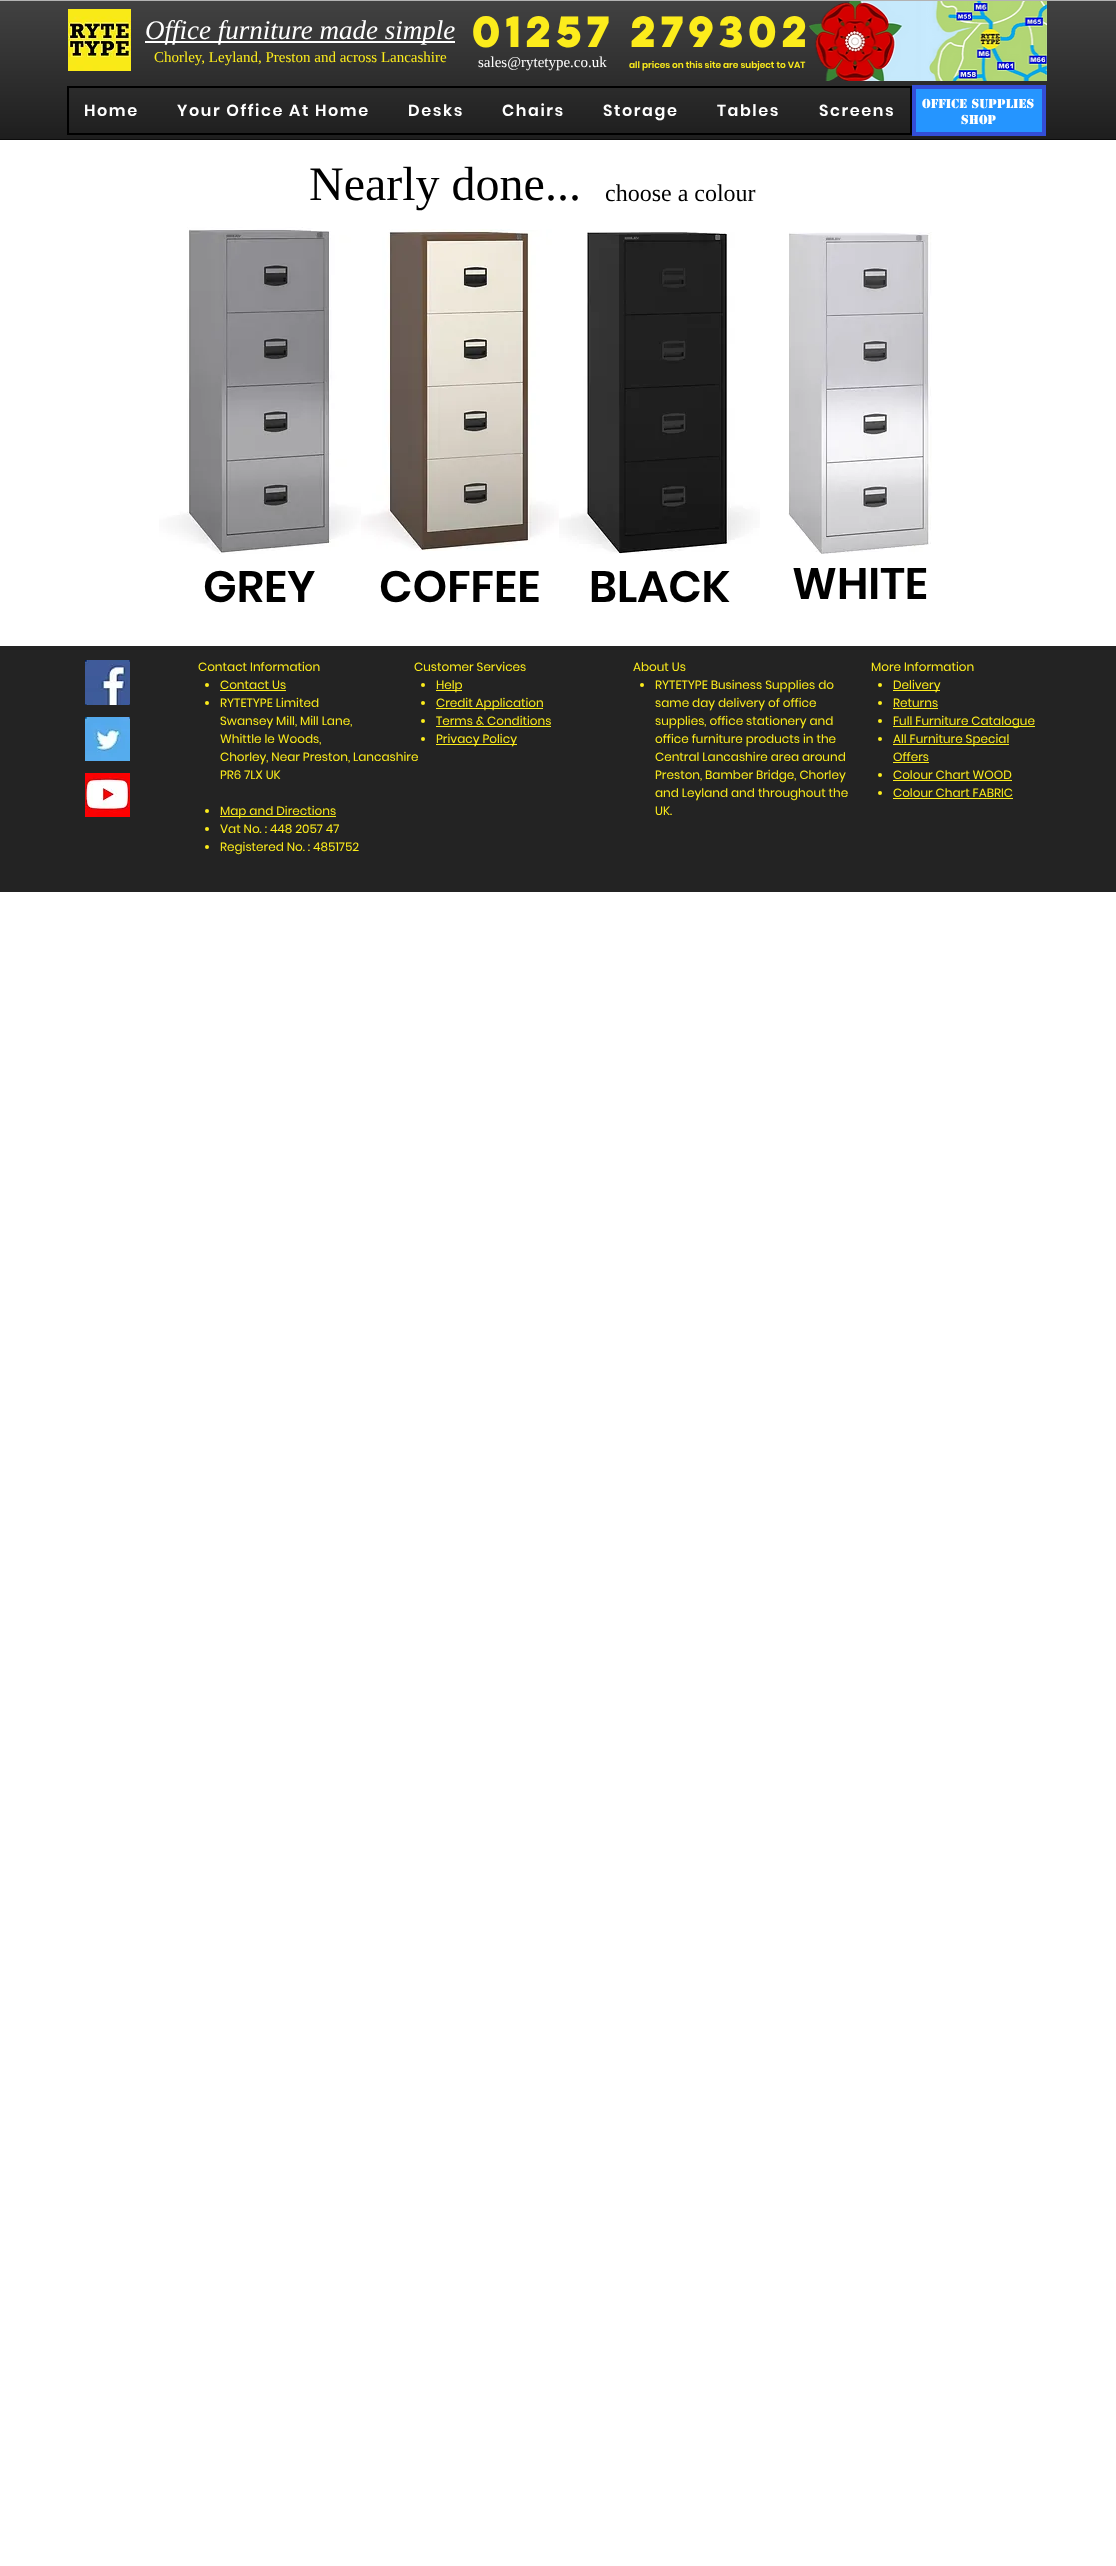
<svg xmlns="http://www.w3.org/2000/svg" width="1116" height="2566">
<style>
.a{font:italic 27px Liberation Serif;fill:#fff}
.b{font:15px Liberation Serif;fill:#fcec1c}
.c{font:bold 39px 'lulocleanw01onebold';letter-spacing:-3.9px;fill:#fcec1c}
.d{font:15px Liberation Serif;fill:#fff}
.e{font:600 9px Poppins;fill:#fcec1c}
.f{font:600 16px Poppins;letter-spacing:1.6px;fill:#fff}
.g{font:bold 12px 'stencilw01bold';letter-spacing:0.1px;fill:#fff}
.h{font:48px Liberation Serif;fill:#000}
.i{font:24px Liberation Serif;fill:#000}
.j{font:600 44px Poppins;fill:#000}
.k{font:12px Poppins;fill:#fcec1c}
</style>
<rect width="100%" height="100%" fill="#fff"/>
<path fill="#000" d="M0 1h1116v138H0z"/>
<image href="1.png" x="0" y="1" width="1116" height="138"/>
<path fill="#0c0c0c" d="M0 139h1116v1H0z"/>
<path fill="#b3b3b3" d="M0 0h1116v1H0z"/>
<image href="2.png" x="68" y="9" width="63" height="62"/>
<path fill="#fff" d="M145 41h310v2H145z"/>
<image href="3.png" x="809" y="1" width="238" height="80"/>
<path fill="#2595ff" stroke="#334ed7" stroke-width="4" d="M914 87h130v47H914z"/>
<path fill="none" stroke="#000" stroke-width="2" d="M68 87h843v47H68z"/>
<image href="4.png" x="159" y="227" width="202" height="327"/>
<image href="5.png" x="361" y="229" width="198" height="322"/>
<image href="6.png" x="559" y="232" width="201" height="322"/>
<image href="7.png" x="788" y="232" width="144" height="322"/>
<path fill="#232323" d="M0 646h1116v246H0z"/>
<image href="8.png" x="85" y="660" width="45" height="45"/>
<circle fill="#fcec1c" cx="207" cy="685" r="2"/>
<path fill="#fcec1c" d="M220 690h66v1H220z"/>
<circle fill="#fcec1c" cx="207" cy="703" r="2"/>
<circle fill="#fcec1c" cx="207" cy="811" r="2"/>
<path fill="#fcec1c" d="M220 816h116v1H220z"/>
<circle fill="#fcec1c" cx="207" cy="829" r="2"/>
<circle fill="#fcec1c" cx="207" cy="847" r="2"/>
<circle fill="#fcec1c" cx="423" cy="685" r="2"/>
<path fill="#fcec1c" d="M436 690h26v1H436z"/>
<circle fill="#fcec1c" cx="423" cy="703" r="2"/>
<path fill="#fcec1c" d="M436 708h107v1H436z"/>
<circle fill="#fcec1c" cx="423" cy="721" r="2"/>
<path fill="#fcec1c" d="M436 726h115v1H436z"/>
<circle fill="#fcec1c" cx="423" cy="739" r="2"/>
<path fill="#fcec1c" d="M436 744h81v1H436z"/>
<circle fill="#fcec1c" cx="642" cy="685" r="2"/>
<circle fill="#fcec1c" cx="880" cy="685" r="2"/>
<path fill="#fcec1c" d="M893 690h47v1H893z"/>
<circle fill="#fcec1c" cx="880" cy="703" r="2"/>
<path fill="#fcec1c" d="M893 708h45v1H893z"/>
<circle fill="#fcec1c" cx="880" cy="721" r="2"/>
<path fill="#fcec1c" d="M893 726h142v1H893z"/>
<circle fill="#fcec1c" cx="880" cy="739" r="2"/>
<path fill="#fcec1c" d="M893 744h116v1H893z"/>
<path fill="#fcec1c" d="M893 762h36v1H893z"/>
<circle fill="#fcec1c" cx="880" cy="775" r="2"/>
<path fill="#fcec1c" d="M893 780h119v1H893z"/>
<circle fill="#fcec1c" cx="880" cy="793" r="2"/>
<path fill="#fcec1c" d="M893 798h120v1H893z"/>
<image href="9.png" x="85" y="717" width="45" height="44"/>
<image href="10.png" x="85" y="773" width="45" height="44"/>
<text class="a" x="145" y="39">Office furniture made simple</text>
<text class="b" x="154" y="62">Chorley, Leyland, Preston and across Lancashire</text>
<text class="c" x="472" y="47">01257 279302</text>
<text class="d" x="478" y="67">sales@rytetype.co.uk</text>
<text class="e" x="629" y="68">all prices on this site are subject to VAT</text>
<text class="f" x="84" y="116">Home</text>
<text class="f" x="177" y="116">Your Office At Home</text>
<text class="f" x="408" y="116">Desks</text>
<text class="f" x="502" y="116">Chairs</text>
<text class="f" x="603" y="116">Storage</text>
<text class="f" x="717" y="116">Tables</text>
<text class="f" x="819" y="116">Screens</text>
<text class="g" x="922" y="108">OFFICE SUPPLIES</text>
<text class="g" x="961" y="124">SHOP</text>
<text class="h" x="309" y="200">Nearly done...</text>
<text class="i" x="605" y="201">choose a colour</text>
<text class="j" x="203" y="602">GREY</text>
<text class="j" x="379" y="602">COFFEE</text>
<text class="j" x="589" y="602">BLACK</text>
<text class="j" x="792" y="599">WHITE</text>
<text class="k" x="198" y="671">Contact Information</text>
<text class="k" x="220" y="689">Contact Us</text>
<text class="k" x="220" y="707">RYTETYPE Limited</text>
<text class="k" x="220" y="725">Swansey Mill, Mill Lane,</text>
<text class="k" x="220" y="743">Whittle le Woods,</text>
<text class="k" x="220" y="761">Chorley, Near Preston, Lancashire</text>
<text class="k" x="220" y="779">PR6 7LX UK</text>
<text class="k" x="220" y="815">Map and Directions</text>
<text class="k" x="220" y="833">Vat No. : 448 2057 47</text>
<text class="k" x="220" y="851">Registered No. : 4851752</text>
<text class="k" x="414" y="671">Customer Services</text>
<text class="k" x="436" y="689">Help</text>
<text class="k" x="436" y="707">Credit Application</text>
<text class="k" x="436" y="725">Terms &amp; Conditions</text>
<text class="k" x="436" y="743">Privacy Policy</text>
<text class="k" x="633" y="671">About Us</text>
<text class="k" x="655" y="689">RYTETYPE Business Supplies do</text>
<text class="k" x="655" y="707">same day delivery of office</text>
<text class="k" x="655" y="725">supplies, office stationery and</text>
<text class="k" x="655" y="743">office furniture products in the</text>
<text class="k" x="655" y="761">Central Lancashire area around</text>
<text class="k" x="655" y="779">Preston, Bamber Bridge, Chorley</text>
<text class="k" x="655" y="797">and Leyland and throughout the</text>
<text class="k" x="655" y="815">UK.</text>
<text class="k" x="871" y="671">More Information</text>
<text class="k" x="893" y="689">Delivery</text>
<text class="k" x="893" y="707">Returns</text>
<text class="k" x="893" y="725">Full Furniture Catalogue</text>
<text class="k" x="893" y="743">All Furniture Special</text>
<text class="k" x="893" y="761">Offers</text>
<text class="k" x="893" y="779">Colour Chart WOOD</text>
<text class="k" x="893" y="797">Colour Chart FABRIC</text>
</svg>
